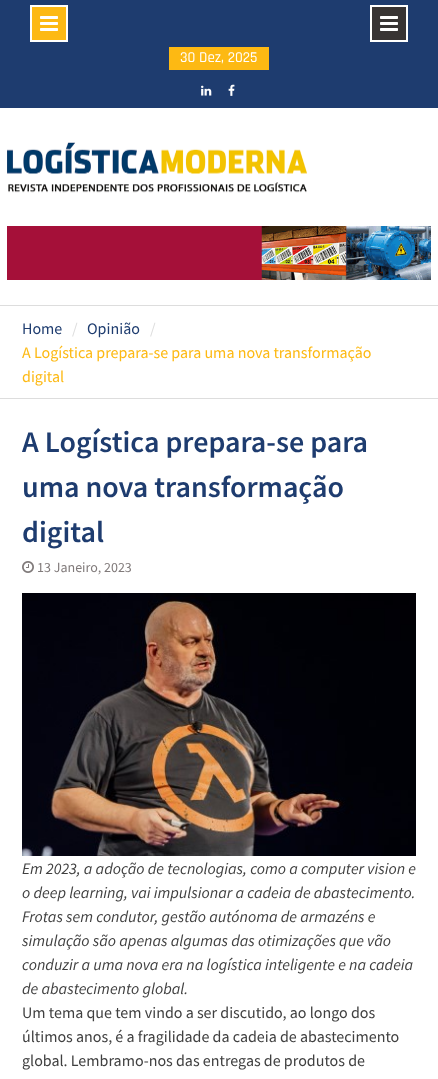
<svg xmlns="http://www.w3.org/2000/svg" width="438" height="1079">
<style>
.a{font:500 15px Rajdhani;fill:#fff}
.b{font:16px Source Sans Pro;fill:#1e3c6f}
.c{font:16px Source Sans Pro;fill:#ddd}
.d{font:16px Source Sans Pro;fill:#fdb913}
.e{font:600 30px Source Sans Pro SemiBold;fill:#1e3c6f}
.f{font:14px Source Sans Pro;fill:#807a7a}
.g{font:italic 16px Source Sans Pro;fill:#404040}
.h{font:16px Source Sans Pro;fill:#404040}
</style>
<rect width="100%" height="100%" fill="#fff"/>
<path fill="#1e3c6f" d="M0 0h438v108H0z"/>
<path fill="#fdb913" stroke="#fffffe" stroke-width="2" d="M31 6h36v35H31z"/>
<image href="1.png" x="40" y="16" width="18" height="15"/>
<path fill="#383433" stroke="#fffffe" stroke-width="2" d="M371 6h36v35H371z"/>
<image href="2.png" x="380" y="16" width="18" height="15"/>
<path fill="#fdb913" d="M169 47h100v23H169z"/>
<image href="3.png" x="201" y="85" width="11" height="11"/>
<image href="4.png" x="228" y="84" width="7" height="12"/>
<path fill="#ddd" d="M0 305h438v1H0z"/>
<image href="5.png" x="7" y="142" width="300" height="51"/>
<image href="6.png" x="7" y="226" width="424" height="54"/>
<path fill="#ddd" d="M0 398h438v1H0z"/>
<image href="7.png" x="22" y="561" width="12" height="12"/>
<image href="8.png" x="22" y="593" width="394" height="263"/>
<text class="a" x="180" y="62">30 Dez, 2025</text>
<text class="b" x="22" y="334">Home</text>
<text class="c" x="72" y="334">/</text>
<text class="b" x="87" y="334">Opinião</text>
<text class="c" x="150" y="334">/</text>
<text class="d" x="22" y="358">A Logística prepara-se para uma nova transformação</text>
<text class="d" x="22" y="382">digital</text>
<text class="e" x="22" y="452">A Logística prepara-se para</text>
<text class="e" x="22" y="497">uma nova transformação</text>
<text class="e" x="22" y="542">digital</text>
<text class="f" x="37" y="572">13 Janeiro, 2023</text>
<text class="g" x="22" y="874">Em 2023, a adoção de tecnologias, como a computer vision e</text>
<text class="g" x="22" y="898">o deep learning, vai impulsionar a cadeia de abastecimento.</text>
<text class="g" x="22" y="922">Frotas sem condutor, gestão autónoma de armazéns e</text>
<text class="g" x="22" y="946">simulação são apenas algumas das otimizações que vão</text>
<text class="g" x="22" y="970">conduzir a uma nova era na logística inteligente e na cadeia</text>
<text class="g" x="22" y="994">de abastecimento global.</text>
<text class="h" x="22" y="1018">Um tema que tem vindo a ser discutido, ao longo dos</text>
<text class="h" x="22" y="1042">últimos anos, é a fragilidade da cadeia de abastecimento</text>
<text class="h" x="22" y="1066">global. Lembramo-nos das entregas de produtos de</text>
</svg>
